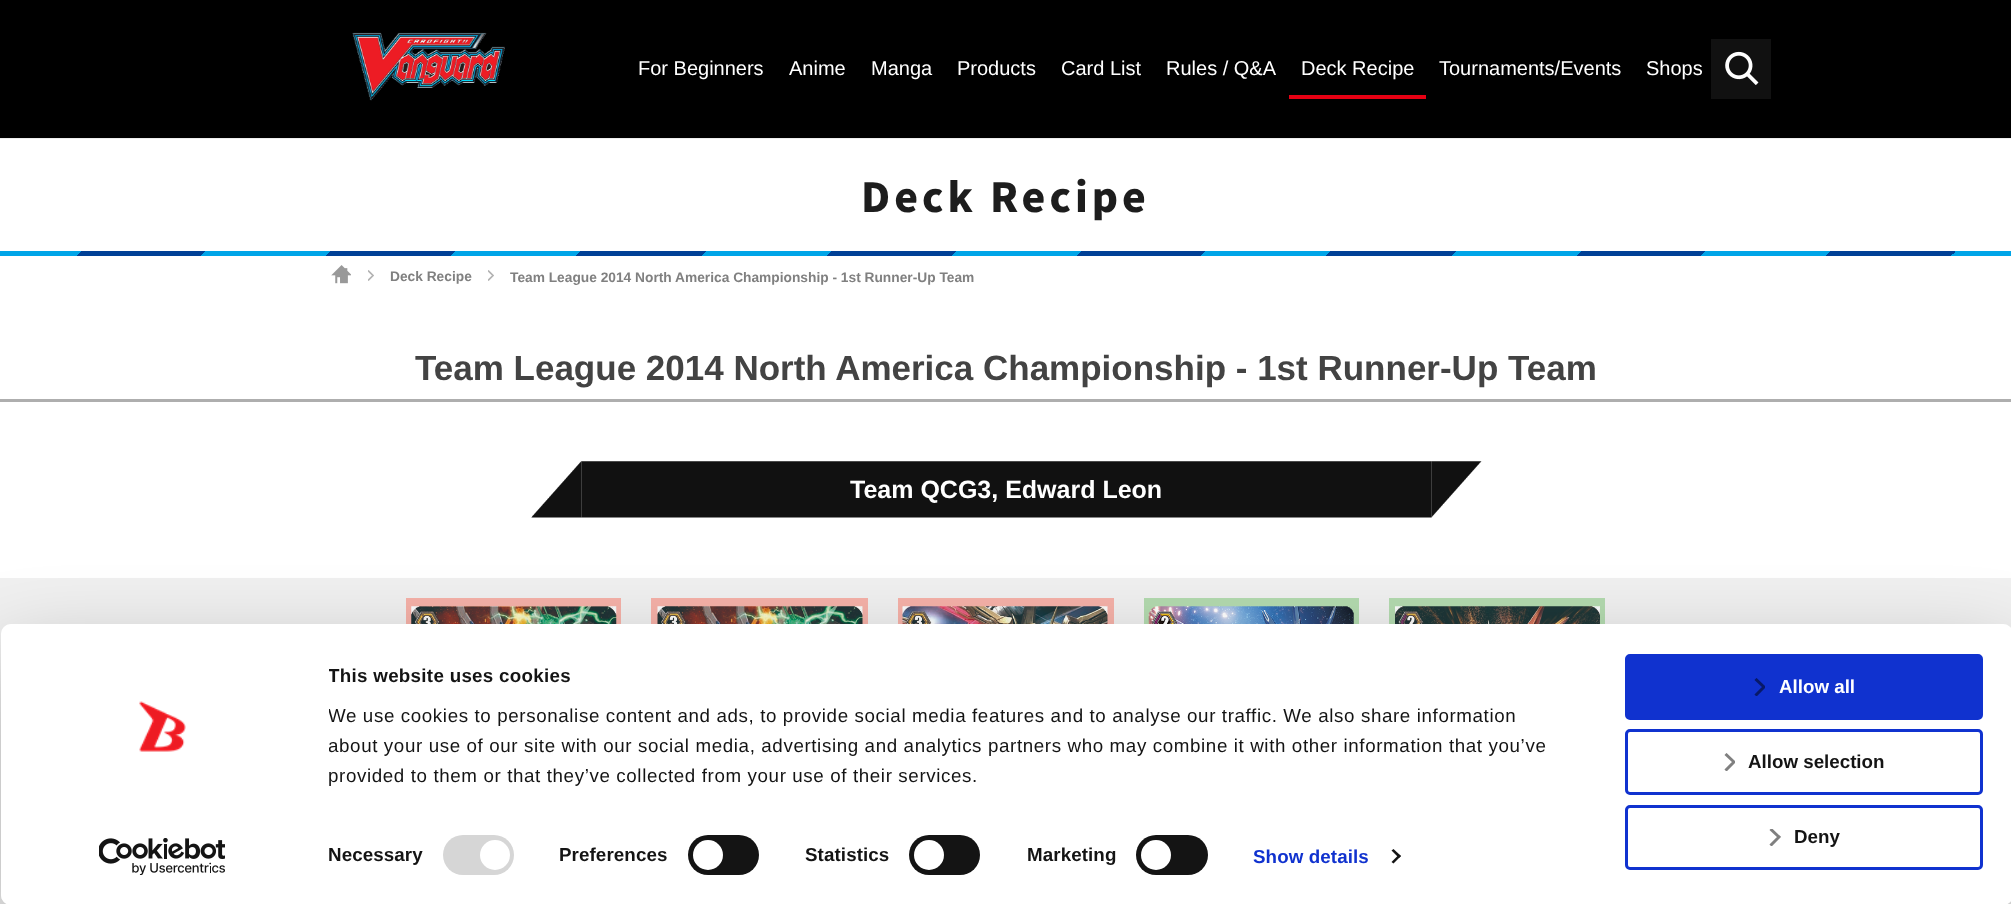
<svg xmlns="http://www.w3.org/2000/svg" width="2011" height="904">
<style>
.a{font:20px Liberation Sans;fill:#fff}
.b{font:100 40px Noto Sans JP;letter-spacing:4px;fill:#1d1d1d}
.c{font:bold 13.75px Liberation Sans;fill:#808080}
.d{font:bold 35px Liberation Sans;fill:#434343}
.e{font:bold 25px Liberation Sans;fill:#fff}
.f{font:bold 18.75px Liberation Sans;letter-spacing:0.3px;fill:#141414}
.g{font:18.75px Liberation Sans;letter-spacing:0.62px;fill:#141414}
.h{font:bold 18.75px Liberation Sans;letter-spacing:0.1px;fill:#141414}
.i{font:bold 18.75px Liberation Sans;letter-spacing:0.1px;fill:#1032cf}
.j{font:bold 18.75px Liberation Sans;fill:#fff}
.k{font:bold 18.75px Liberation Sans;fill:#141414}
</style>
<defs>
<linearGradient id="g1" gradientUnits="userSpaceOnUse" x1="81" y1="501" x2="-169" y2="251"><stop offset="0.25" stop-color="#00a5e8"/><stop offset="0.25" stop-color="#004096"/><stop offset="0.5" stop-color="#004096"/><stop offset="0.5" stop-color="#00a5e8"/><stop offset="0.75" stop-color="#00a5e8"/><stop offset="0.75" stop-color="#004096"/><stop offset="1" stop-color="#004096"/></linearGradient>
<linearGradient id="g2" gradientUnits="userSpaceOnUse" x1="331" y1="501" x2="81" y2="251"><stop offset="0.25" stop-color="#00a5e8"/><stop offset="0.25" stop-color="#004096"/><stop offset="0.5" stop-color="#004096"/><stop offset="0.5" stop-color="#00a5e8"/><stop offset="0.75" stop-color="#00a5e8"/><stop offset="0.75" stop-color="#004096"/><stop offset="1" stop-color="#004096"/></linearGradient>
<linearGradient id="g3" gradientUnits="userSpaceOnUse" x1="581" y1="501" x2="331" y2="251"><stop offset="0.25" stop-color="#00a5e8"/><stop offset="0.25" stop-color="#004096"/><stop offset="0.5" stop-color="#004096"/><stop offset="0.5" stop-color="#00a5e8"/><stop offset="0.75" stop-color="#00a5e8"/><stop offset="0.75" stop-color="#004096"/><stop offset="1" stop-color="#004096"/></linearGradient>
<linearGradient id="g4" gradientUnits="userSpaceOnUse" x1="831" y1="501" x2="581" y2="251"><stop offset="0.25" stop-color="#00a5e8"/><stop offset="0.25" stop-color="#004096"/><stop offset="0.5" stop-color="#004096"/><stop offset="0.5" stop-color="#00a5e8"/><stop offset="0.75" stop-color="#00a5e8"/><stop offset="0.75" stop-color="#004096"/><stop offset="1" stop-color="#004096"/></linearGradient>
<linearGradient id="g5" gradientUnits="userSpaceOnUse" x1="1081" y1="501" x2="831" y2="251"><stop offset="0.25" stop-color="#00a5e8"/><stop offset="0.25" stop-color="#004096"/><stop offset="0.5" stop-color="#004096"/><stop offset="0.5" stop-color="#00a5e8"/><stop offset="0.75" stop-color="#00a5e8"/><stop offset="0.75" stop-color="#004096"/><stop offset="1" stop-color="#004096"/></linearGradient>
<linearGradient id="g6" gradientUnits="userSpaceOnUse" x1="1331" y1="501" x2="1081" y2="251"><stop offset="0.25" stop-color="#00a5e8"/><stop offset="0.25" stop-color="#004096"/><stop offset="0.5" stop-color="#004096"/><stop offset="0.5" stop-color="#00a5e8"/><stop offset="0.75" stop-color="#00a5e8"/><stop offset="0.75" stop-color="#004096"/><stop offset="1" stop-color="#004096"/></linearGradient>
<linearGradient id="g7" gradientUnits="userSpaceOnUse" x1="1581" y1="501" x2="1331" y2="251"><stop offset="0.25" stop-color="#00a5e8"/><stop offset="0.25" stop-color="#004096"/><stop offset="0.5" stop-color="#004096"/><stop offset="0.5" stop-color="#00a5e8"/><stop offset="0.75" stop-color="#00a5e8"/><stop offset="0.75" stop-color="#004096"/><stop offset="1" stop-color="#004096"/></linearGradient>
<linearGradient id="g8" gradientUnits="userSpaceOnUse" x1="1831" y1="501" x2="1581" y2="251"><stop offset="0.25" stop-color="#00a5e8"/><stop offset="0.25" stop-color="#004096"/><stop offset="0.5" stop-color="#004096"/><stop offset="0.5" stop-color="#00a5e8"/><stop offset="0.75" stop-color="#00a5e8"/><stop offset="0.75" stop-color="#004096"/><stop offset="1" stop-color="#004096"/></linearGradient>
<linearGradient id="g9" gradientUnits="userSpaceOnUse" x1="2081" y1="501" x2="1831" y2="251"><stop offset="0.25" stop-color="#00a5e8"/><stop offset="0.25" stop-color="#004096"/><stop offset="0.5" stop-color="#004096"/><stop offset="0.5" stop-color="#00a5e8"/><stop offset="0.75" stop-color="#00a5e8"/><stop offset="0.75" stop-color="#004096"/><stop offset="1" stop-color="#004096"/></linearGradient>
<clipPath id="clip1"><path d="M368 270h6v11H368z"/></clipPath>
<clipPath id="clip2"><path d="M488 270h6v11H488z"/></clipPath>
<clipPath id="clip3"><path d="M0 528h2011v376h-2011zm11 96h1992c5.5 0 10 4.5 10 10v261c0 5.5-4.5 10-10 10h-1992c-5.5 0-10-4.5-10-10v-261c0-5.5 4.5-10 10-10z" clip-rule="evenodd"/></clipPath>
<clipPath id="clip4"><path d="M1754 678h11v18H1754z"/></clipPath>
<clipPath id="clip5"><path d="M1724 753h11v18H1724z"/></clipPath>
<clipPath id="clip6"><path d="M1769 829h12v17H1769z"/></clipPath>
<clipPath id="clip7"><path d="M329 661h1260v129H329z"/></clipPath>
</defs>
<rect width="100%" height="100%" fill="#fff"/>
<path fill="#000" d="M0 0h2011v138H0z"/>
<image href="1.png" x="352" y="32" width="153" height="69"/>
<path fill="#e60013" d="M1289 95h137v4H1289z"/>
<path fill="#111" d="M1711 39h60v60H1711z"/>
<image href="2.png" x="1725" y="51" width="34" height="34"/>
<path fill="#eee" d="M0 138h2011v1H0z"/>
<path fill="url(#g1)" d="M0 251h81v5H0z"/>
<path fill="url(#g2)" d="M81 251h250v5H81z"/>
<path fill="url(#g3)" d="M331 251h250v5H331z"/>
<path fill="url(#g4)" d="M581 251h250v5H581z"/>
<path fill="url(#g5)" d="M831 251h250v5H831z"/>
<path fill="url(#g6)" d="M1081 251h250v5H1081z"/>
<path fill="url(#g7)" d="M1331 251h250v5H1331z"/>
<path fill="url(#g8)" d="M1581 251h250v5H1581z"/>
<path fill="url(#g9)" d="M1831 251h180v5H1831z"/>
<image href="3.png" x="331" y="265" width="20" height="19"/>
<g clip-path="url(#clip1)">
<path fill="none" stroke="#b3b3b3" stroke-width="1.7" d="M368 280.5l5-5l-5-5"/>
</g>
<g clip-path="url(#clip2)">
<path fill="none" stroke="#b3b3b3" stroke-width="1.7" d="M488 280.5l5-5l-5-5"/>
</g>
<path fill="#aeaeae" d="M0 399h2011v3H0z"/>
<image href="4.png" x="531" y="461" width="951" height="57"/>
<path fill="#f0f0f0" d="M0 578h2011v326H0z"/>
<path fill="#f5b1a8" d="M406 598h215v26H406z"/>
<image href="5.png" x="411" y="606" width="206" height="18"/>
<path fill="#f5b1a8" d="M651 598h217v26H651z"/>
<image href="6.png" x="657" y="606" width="206" height="18"/>
<path fill="#f5b1a8" d="M898 598h216v26H898z"/>
<image href="7.png" x="902" y="606" width="206" height="18"/>
<path fill="#b3daaf" d="M1144 598h215v26H1144z"/>
<image href="8.png" x="1148" y="606" width="206" height="18"/>
<path fill="#b3daaf" d="M1389 598h216v26H1389z"/>
<image href="9.png" x="1395" y="606" width="205" height="18"/>
<g clip-path="url(#clip3)">
<rect fill="#0000004d" filter="blur(44px)" x="1" y="661" width="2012" height="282" rx="10"/>
</g>
<rect fill="#fff" x="1" y="624" width="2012" height="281" rx="10"/>
<image href="10.png" x="139" y="701" width="47" height="51"/>
<image href="11.png" x="99" y="838" width="126" height="37"/>
<rect fill="#d6d6d6" x="443" y="835" width="71" height="40" rx="20"/>
<circle fill="#fff" cx="495" cy="855" r="15"/>
<rect fill="#141414" x="688" y="835" width="71" height="40" rx="20"/>
<circle fill="#fff" cx="708" cy="855" r="15"/>
<rect fill="#141414" x="909" y="835" width="71" height="40" rx="20"/>
<circle fill="#fff" cx="929" cy="855" r="15"/>
<rect fill="#141414" x="1136" y="835" width="72" height="40" rx="20"/>
<circle fill="#fff" cx="1156" cy="855" r="15"/>
<path fill="#141414" d="M1393.5 849l7.5 7l-2 2l-7.5-7.5z"/>
<path fill="#141414" d="M1399 854.5l2 1.5l-7.5 7.5l-2-1.5z"/>
<rect fill="#1032cf" stroke="#1032cf" stroke-width="3" x="1626.5" y="655.5" width="355" height="63" rx="3.5"/>
<g clip-path="url(#clip4)">
<path fill="none" stroke="#081968" stroke-width="3" d="M1755.5 695.5l8.5-8.5l-8.5-8"/>
</g>
<rect fill="none" stroke="#1032cf" stroke-width="3" x="1626.5" y="730.5" width="355" height="63" rx="3.5"/>
<g clip-path="url(#clip5)">
<path fill="none" stroke="#808080" stroke-width="3" d="M1725.5 770.5l8.5-8.5l-8.5-8"/>
</g>
<rect fill="none" stroke="#1032cf" stroke-width="3" x="1626.5" y="806.5" width="355" height="62" rx="3.5"/>
<g clip-path="url(#clip6)">
<path fill="none" stroke="#808080" stroke-width="3" d="M1770.5 845.5l8.5-8.5l-8.5-8"/>
</g>
<text class="a" x="638" y="75">For Beginners</text>
<text class="a" x="789" y="75">Anime</text>
<text class="a" x="871" y="75">Manga</text>
<text class="a" x="957" y="75">Products</text>
<text class="a" x="1061" y="75">Card List</text>
<text class="a" x="1166" y="75">Rules / Q&amp;A</text>
<text class="a" x="1301" y="75">Deck Recipe</text>
<text class="a" x="1439" y="75">Tournaments/Events</text>
<text class="a" x="1646" y="75">Shops</text>
<text class="b" x="861" y="212">Deck Recipe</text>
<text class="c" x="390" y="281">Deck Recipe</text>
<text class="c" x="510" y="282">Team League 2014 North America Championship - 1st Runner-Up Team</text>
<text class="d" x="415" y="380">Team League 2014 North America Championship - 1st Runner-Up Team</text>
<text class="e" x="850" y="498">Team QCG3, Edward Leon</text>
<g clip-path="url(#clip7)">
<text class="f" x="328" y="682">This website uses cookies</text>
<text class="g" x="328" y="722">We use cookies to personalise content and ads, to provide social media features and to analyse our traffic. We also share information</text>
<text class="g" x="328" y="752">about your use of our site with our social media, advertising and analytics partners who may combine it with other information that you’ve</text>
<text class="g" x="328" y="782">provided to them or that they’ve collected from your use of their services.</text>
</g>
<text class="h" x="328" y="861">Necessary</text>
<text class="h" x="559" y="861">Preferences</text>
<text class="h" x="805" y="861">Statistics</text>
<text class="h" x="1027" y="861">Marketing</text>
<text class="i" x="1253" y="863">Show details</text>
<text class="j" x="1779" y="693">Allow all</text>
<text class="k" x="1748" y="768">Allow selection</text>
<text class="k" x="1794" y="843">Deny</text>
</svg>
